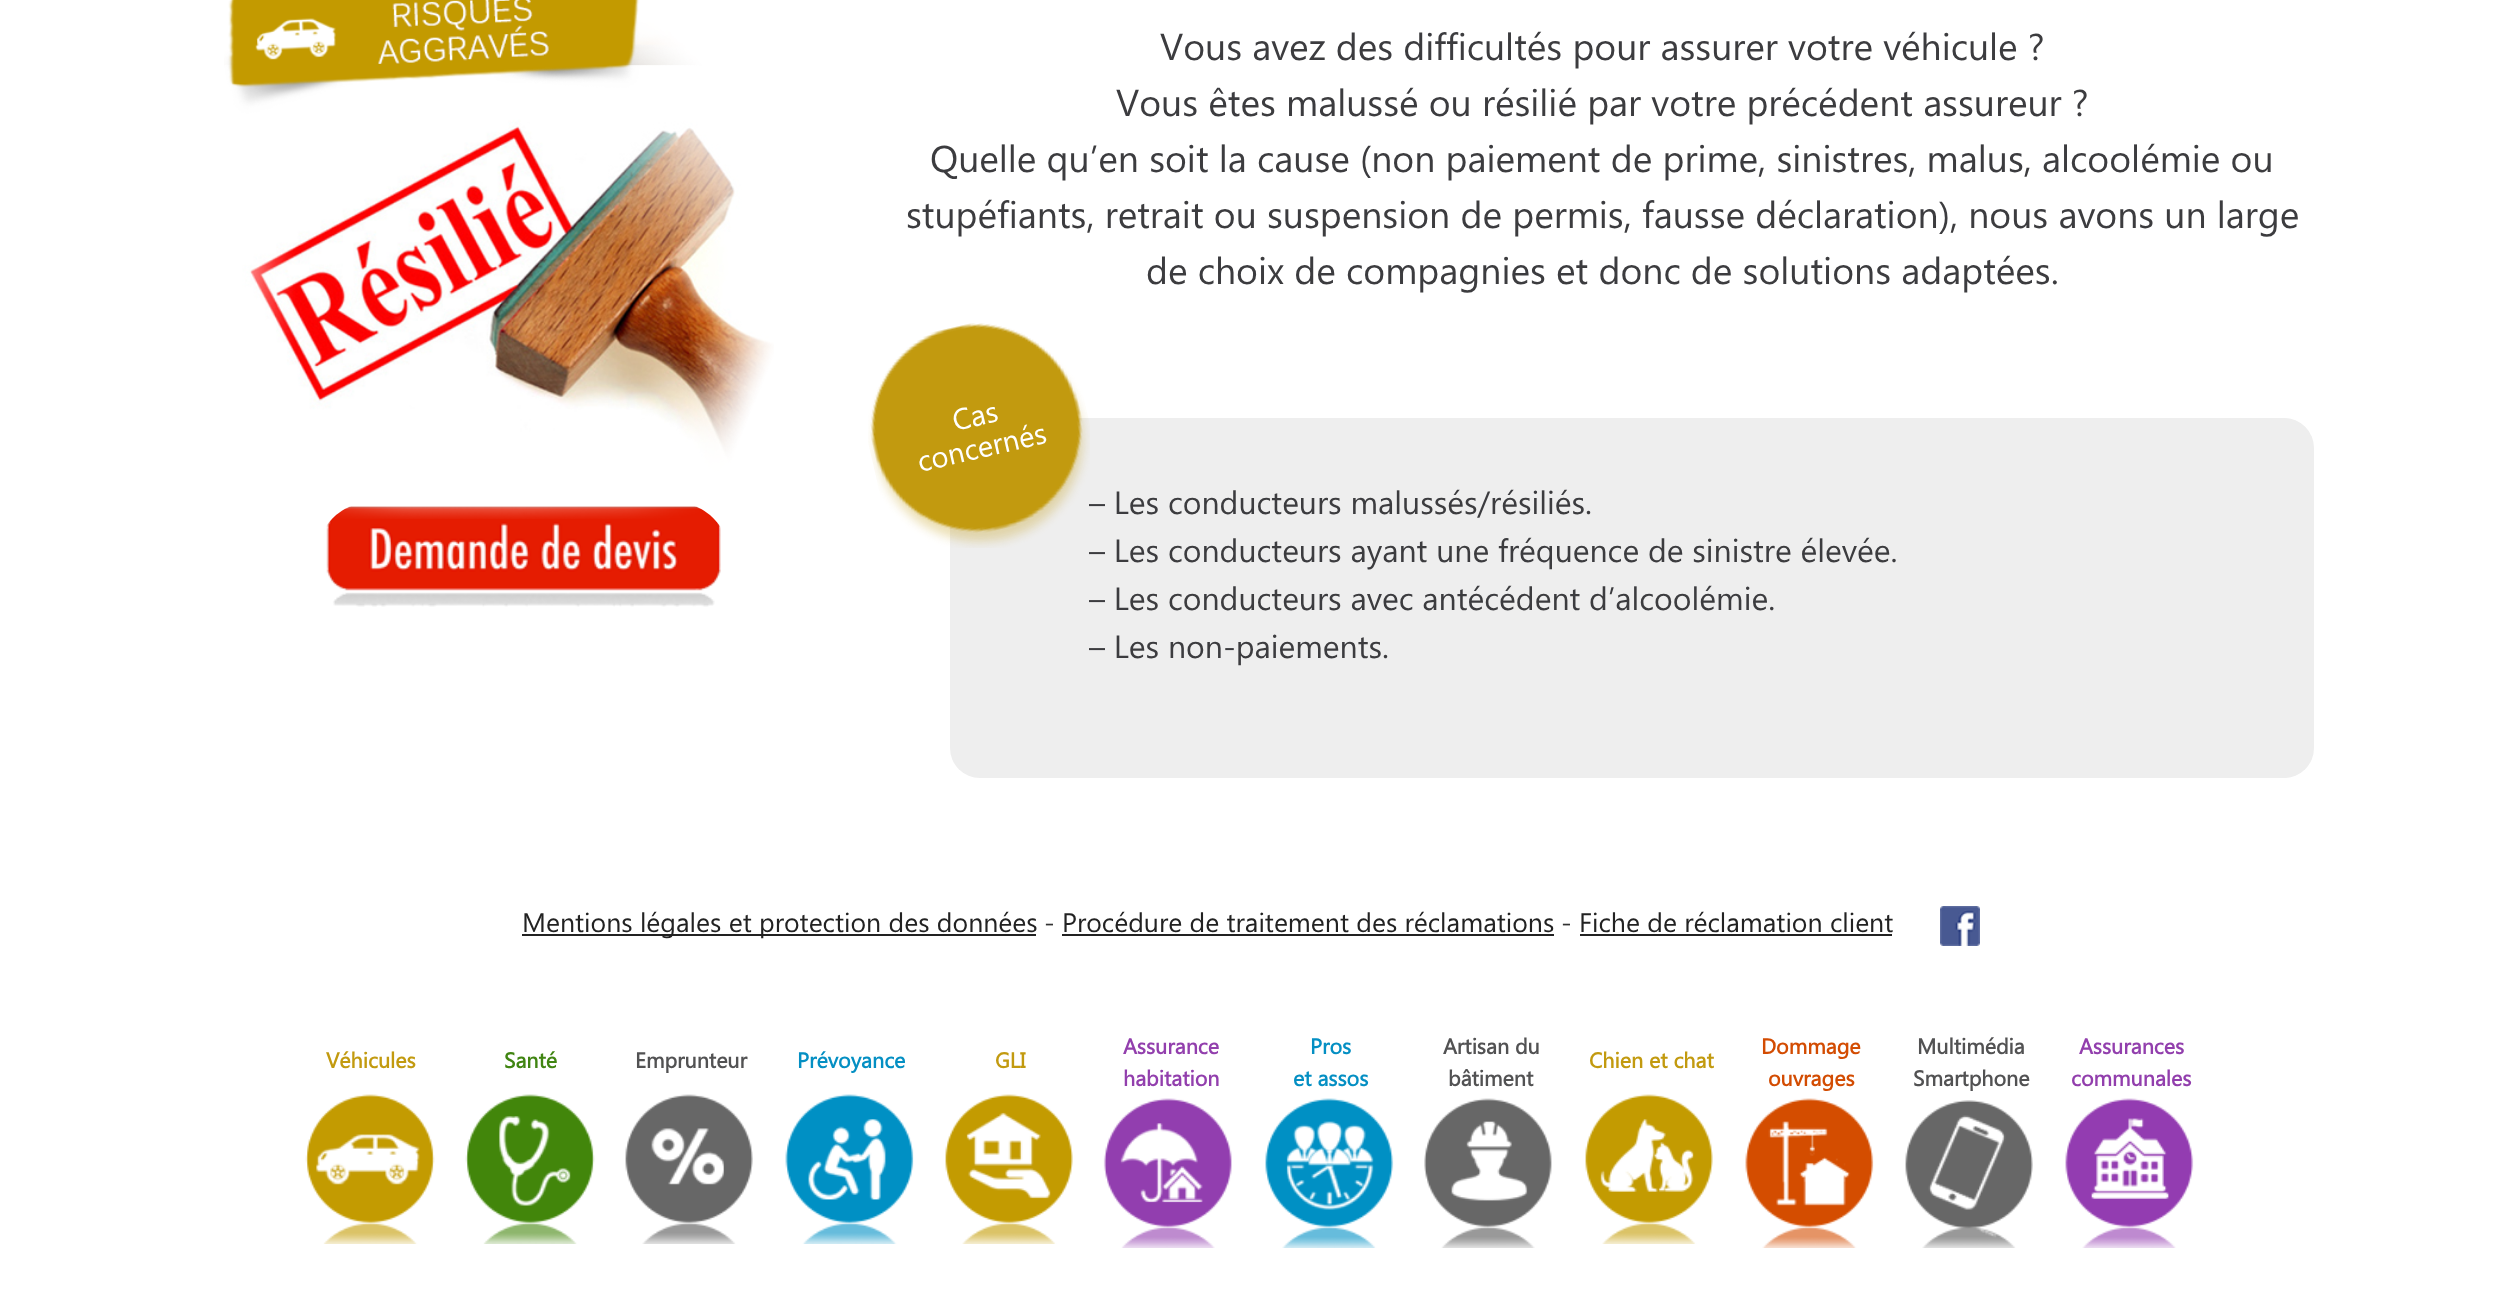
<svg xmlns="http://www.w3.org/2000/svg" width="2502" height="1301">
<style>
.a{font:37.35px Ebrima;fill:#3c3c3f}
.b{font:32px Ebrima;fill:#3c3c3f}
.c{font:29.5px Ebrima;fill:#fff}
.d{font:26.7px Ebrima;fill:#222}
.e{font:26.7px Ebrima;fill:#333}
.f{font:bold 21.5px Ebrima;fill:#c29a0f}
.g{font:bold 21.5px Ebrima;fill:#408512}
.h{font:bold 21.5px Ebrima;fill:#525253}
.i{font:bold 21.5px Ebrima;fill:#048fc3}
.j{font:bold 21.5px Ebrima;fill:#923fad}
.k{font:bold 21.5px Ebrima;fill:#d34c02}
</style>
<rect width="100%" height="100%" fill="#fff"/>
<image href="2.png" x="326" y="506" width="395" height="101"/>
<image href="1.png" x="224" y="0" width="550" height="519"/>
<rect fill="#eee" x="950" y="418" width="1364" height="360" rx="30"/>
<path fill="#222" d="M522 934h514v2H522z"/>
<path fill="#222" d="M1062 934h492v2H1062z"/>
<path fill="#222" d="M1580 934h312v2H1580z"/>
<image href="4.png" x="1940" y="906" width="40" height="40"/>
<image href="5.png" x="305" y="1094" width="130" height="150"/>
<image href="6.png" x="465" y="1094" width="130" height="150"/>
<image href="7.png" x="625" y="1094" width="128" height="150"/>
<image href="8.png" x="785" y="1094" width="129" height="150"/>
<image href="9.png" x="945" y="1094" width="128" height="150"/>
<image href="10.png" x="1103" y="1098" width="129" height="150"/>
<image href="11.png" x="1265" y="1098" width="129" height="150"/>
<image href="12.png" x="1424" y="1098" width="128" height="150"/>
<image href="13.png" x="1585" y="1094" width="128" height="150"/>
<image href="14.png" x="1745" y="1098" width="129" height="150"/>
<image href="15.png" x="1905" y="1100" width="128" height="148"/>
<image href="16.png" x="2065" y="1098" width="129" height="150"/>
<text class="a" x="1160" y="60">Vous avez des difficultés pour assurer votre véhicule ?</text>
<text class="a" x="1116" y="116">Vous êtes malussé ou résilié par votre précédent assureur ?</text>
<text class="a" x="930" y="172">Quelle qu’en soit la cause (non paiement de prime, sinistres, malus, alcoolémie ou</text>
<text class="a" x="906" y="228">stupéfiants, retrait ou suspension de permis, fausse déclaration), nous avons un large</text>
<text class="a" x="1146" y="284">de choix de compagnies et donc de solutions adaptées.</text>
<text class="b" x="1089" y="514">– Les conducteurs malussés/résiliés.</text>
<text class="b" x="1089" y="562">– Les conducteurs ayant une fréquence de sinistre élevée.</text>
<image href="3.png" x="868" y="323" width="222" height="225"/>
<text class="c" x="920" y="472" transform="rotate(-13 920 472)">concernés</text>
<text class="c" x="955" y="431" transform="rotate(-13 955 431)">Cas</text>
<text class="b" x="1089" y="610">– Les conducteurs avec antécédent d’alcoolémie.</text>
<text class="b" x="1089" y="658">– Les non-paiements.</text>
<text class="d" x="522" y="932">Mentions légales et protection des données</text>
<text class="e" x="1044" y="932">-</text>
<text class="d" x="1062" y="932">Procédure de traitement des réclamations</text>
<text class="e" x="1561" y="932">-</text>
<text class="d" x="1579" y="932">Fiche de réclamation client</text>
<text class="f" x="326" y="1068">Véhicules</text>
<text class="g" x="504" y="1068">Santé</text>
<text class="h" x="635" y="1068">Emprunteur</text>
<text class="i" x="797" y="1068">Prévoyance</text>
<text class="f" x="995" y="1068">GLI</text>
<text class="j" x="1123" y="1054">Assurance</text>
<text class="j" x="1123" y="1086">habitation</text>
<text class="i" x="1310" y="1054">Pros</text>
<text class="i" x="1293" y="1086">et assos</text>
<text class="h" x="1443" y="1054">Artisan du</text>
<text class="h" x="1448" y="1086">bâtiment</text>
<text class="f" x="1589" y="1068">Chien et chat</text>
<text class="k" x="1761" y="1054">Dommage</text>
<text class="k" x="1768" y="1086">ouvrages</text>
<text class="h" x="1917" y="1054">Multimédia</text>
<text class="h" x="1913" y="1086">Smartphone</text>
<text class="j" x="2079" y="1054">Assurances</text>
<text class="j" x="2071" y="1086">communales</text>
</svg>
